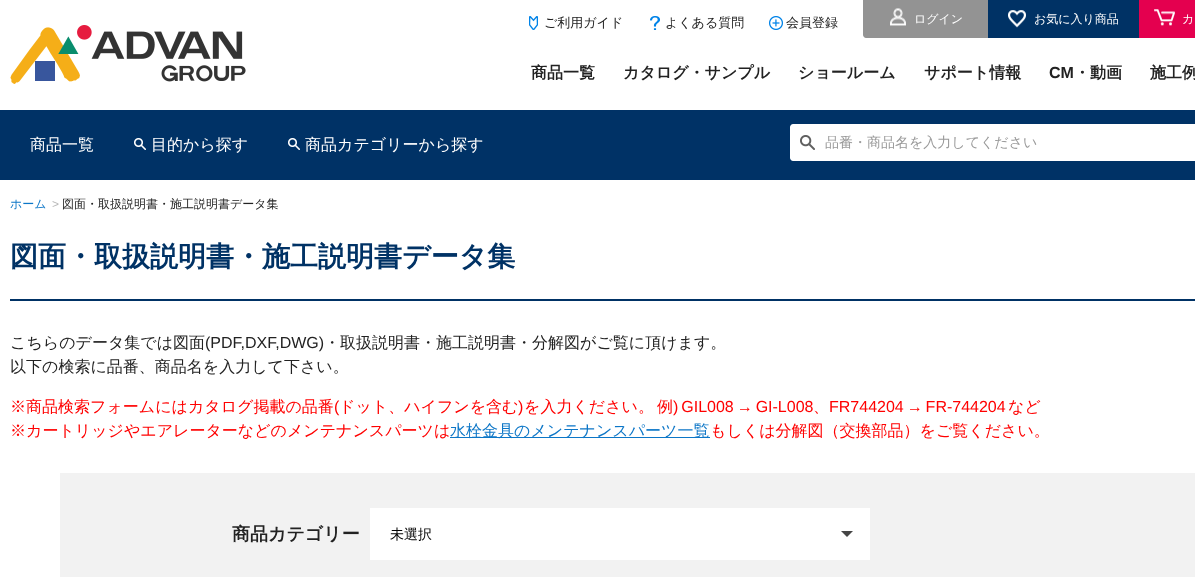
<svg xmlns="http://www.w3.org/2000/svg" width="1195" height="577">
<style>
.a{font:500 13px WenQuanYi Zen Hei;fill:#222}
.b{font:500 12px WenQuanYi Zen Hei;fill:#fff}
.c{font:bold 16px WenQuanYi Zen Hei;fill:#222}
.d{font:bold 16px Liberation Sans;fill:#222}
.e{font:500 16px WenQuanYi Zen Hei;fill:#fff}
.f{font:500 14px WenQuanYi Zen Hei;fill:#999}
.g{font:500 12px WenQuanYi Zen Hei;fill:#0c76c7}
.h{font:12px Liberation Sans;fill:#b6b6b6}
.i{font:500 12px WenQuanYi Zen Hei;fill:#222}
.j{font:bold 28px WenQuanYi Zen Hei;fill:#003265}
.k{font:500 16px WenQuanYi Zen Hei;fill:#222}
.l{font:16px Liberation Sans;fill:#222}
.m{font:500 16px WenQuanYi Zen Hei;fill:#f00}
.n{font:16px Liberation Sans;fill:#f00}
.o{font:500 16px WenQuanYi Zen Hei;fill:#0c76c7}
.p{font:bold 18px WenQuanYi Zen Hei;fill:#222}
.q{font:500 14px WenQuanYi Zen Hei;fill:#000}
</style>
<rect width="100%" height="100%" fill="#fff"/>
<image href="1.png" x="10" y="25" width="236" height="59"/>
<image href="2.png" x="529" y="16" width="9" height="14"/>
<image href="3.png" x="650" y="16" width="10" height="14"/>
<image href="4.png" x="769" y="16" width="14" height="14"/>
<path fill="#939393" d="M863 0h125v38h-122c-1.5 0-3-1.5-3-3z"/>
<image href="5.png" x="890" y="8" width="16" height="18"/>
<path fill="#003265" d="M988 0h151v38H988z"/>
<image href="6.png" x="1008" y="10" width="18" height="18"/>
<path fill="#e4004f" d="M1139 0h56v38H1139z"/>
<image href="7.png" x="1154" y="9" width="21" height="17"/>
<path fill="#003266" d="M0 110h1195v70H0z"/>
<image href="8.png" x="134" y="138" width="12" height="12"/>
<image href="8.png" x="288" y="138" width="12" height="12"/>
<path fill="#fff" d="M793 124h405v37h-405c-1.5 0-3-1.5-3-3v-31c0-1.5 1.5-3 3-3z"/>
<image href="9.png" x="800" y="135" width="15" height="15"/>
<path fill="#003265" d="M10 299h1185v2H10z"/>
<path fill="#0c76c7" d="M450 437h260v1H450z"/>
<path fill="#f2f2f2" d="M60 473h1135v104H60z"/>
<path fill="#fff" d="M370 508h500v52H370z"/>
<path fill="#454545" d="M841 531h12l-6 6z"/>
<text class="a" x="544" y="27">ご利用ガイド</text>
<text class="a" x="665" y="27">よくある質問</text>
<text class="a" x="786" y="27">会員登録</text>
<text class="b" x="914" y="23">ログイン</text>
<text class="b" x="1034" y="23">お気に入り商品</text>
<text class="b" x="1182" y="23">カ</text>
<text class="c" x="531" y="78">商品一覧</text>
<text class="c" x="623" y="78">カタログ・サンプル</text>
<text class="c" x="798" y="78">ショールーム</text>
<text class="c" x="924" y="78">サポート情報</text>
<text class="d" x="1049" y="78">CM</text>
<text class="c" x="1074" y="78">・動画</text>
<text class="c" x="1150" y="78">施工例</text>
<text class="e" x="30" y="150">商品一覧</text>
<text class="e" x="151" y="150">目的から探す</text>
<text class="e" x="305" y="150">商品カテゴリーから探す</text>
<text class="f" x="825" y="147">品番・商品名を入力してください</text>
<text class="g" x="10" y="208">ホーム</text>
<text class="h" x="52" y="208">&gt;</text>
<text class="i" x="62" y="208">図面・取扱説明書・施工説明書データ集</text>
<text class="j" x="10" y="266">図面・取扱説明書・施工説明書データ集</text>
<text class="k" x="10" y="348">こちらのデータ集では図面</text>
<text class="l" x="205" y="348">(PDF,DXF,DWG)</text>
<text class="k" x="324" y="348">・取扱説明書・施工説明書・分解図がご覧に頂けます。</text>
<text class="k" x="10" y="372">以下の検索に品番、商品名を入力して下さい。</text>
<text class="m" x="10" y="412">※商品検索フォームにはカタログ掲載の品番</text>
<text class="n" x="334" y="412">(</text>
<text class="m" x="339" y="412">ドット、ハイフンを含む</text>
<text class="n" x="518" y="412">)</text>
<text class="m" x="524" y="412">を入力ください。</text>
<text class="m" x="657" y="412">例</text>
<text class="n" x="673" y="412" word-spacing="-1.5">) GIL008 → GI-L008</text>
<text class="m" x="813" y="412">、</text>
<text class="n" x="829" y="412" word-spacing="-1.5">FR744204 → FR-744204</text>
<text class="m" x="1008" y="412">など</text>
<text class="m" x="10" y="436">※カートリッジやエアレーターなどのメンテナンスパーツは</text>
<text class="o" x="450" y="436">水栓金具のメンテナンスパーツ一覧</text>
<text class="m" x="710" y="436">もしくは分解図（交換部品）をご覧ください。</text>
<text class="p" x="232" y="540">商品カテゴリー</text>
<text class="q" x="390" y="539">未選択</text>
</svg>
